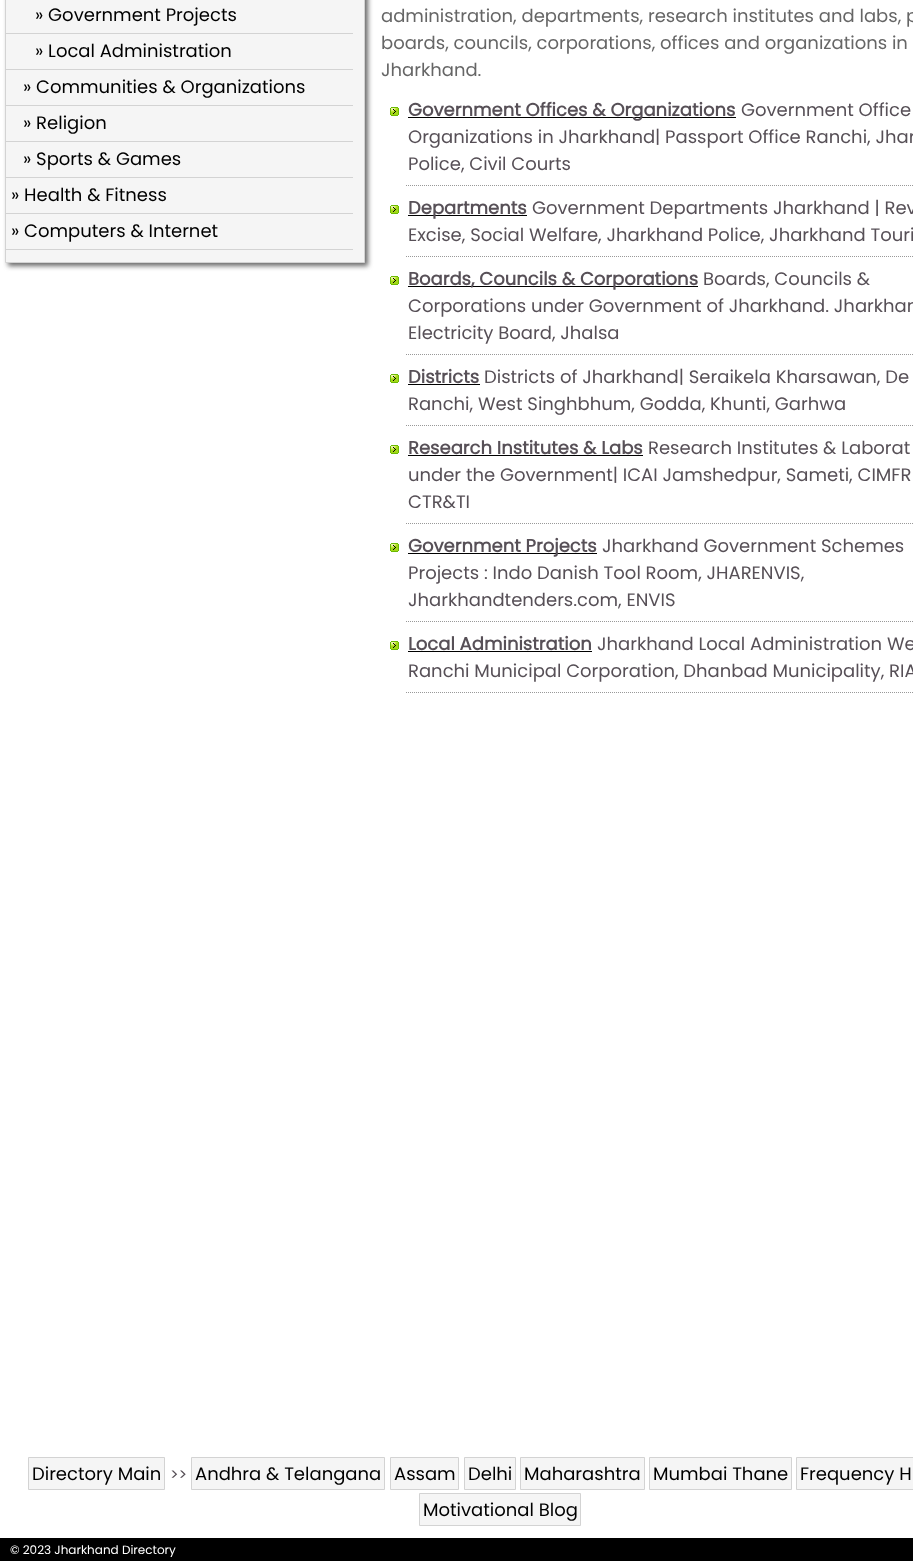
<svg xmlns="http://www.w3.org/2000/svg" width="913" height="1561">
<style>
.a{font:18px Poppins;fill:#000}
.b{font:18px Poppins;fill:#666}
.c{font:bold 18px Poppins;fill:#575057}
.d{font:18px Poppins;fill:#575057}
.e{font:16px Poppins;fill:#575057}
.f{font:12px Poppins;fill:#fff}
</style>
<rect width="100%" height="100%" fill="#fff"/>
<path fill="#696969" filter="blur(2.5px)" d="M8 -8h360v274H8z"/>
<path fill="#f5f5f5" stroke="#d3d3d3" d="M5.5 -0.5h359v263H5.5z"/>
<path fill="#d3d3d3" d="M6 33h347v1H6z"/>
<path fill="#d3d3d3" d="M6 69h347v1H6z"/>
<path fill="#d3d3d3" d="M6 105h347v1H6z"/>
<path fill="#d3d3d3" d="M6 141h347v1H6z"/>
<path fill="#d3d3d3" d="M6 177h347v1H6z"/>
<path fill="#d3d3d3" d="M6 213h347v1H6z"/>
<path fill="#d3d3d3" d="M6 249h347v1H6z"/>
<path fill="none" stroke="#999" stroke-dasharray="1 1" d="M406 185.5h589"/>
<image href="1.png" x="390" y="107" width="9" height="9"/>
<path fill="#000" d="M408 117h328v1H408z"/>
<path fill="none" stroke="#999" stroke-dasharray="1 1" d="M406 256.5h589"/>
<image href="1.png" x="390" y="205" width="9" height="9"/>
<path fill="#000" d="M408 215h119v1H408z"/>
<path fill="none" stroke="#999" stroke-dasharray="1 1" d="M406 354.5h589"/>
<image href="1.png" x="390" y="276" width="9" height="9"/>
<path fill="#000" d="M408 286h290v1H408z"/>
<path fill="none" stroke="#999" stroke-dasharray="1 1" d="M406 425.5h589"/>
<image href="1.png" x="390" y="374" width="9" height="9"/>
<path fill="#000" d="M408 384h72v1H408z"/>
<path fill="none" stroke="#999" stroke-dasharray="1 1" d="M406 523.5h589"/>
<image href="1.png" x="390" y="445" width="9" height="9"/>
<path fill="#000" d="M408 455h235v1H408z"/>
<path fill="none" stroke="#999" stroke-dasharray="1 1" d="M406 621.5h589"/>
<image href="1.png" x="390" y="543" width="9" height="9"/>
<path fill="#000" d="M408 553h189v1H408z"/>
<path fill="none" stroke="#999" stroke-dasharray="1 1" d="M406 692.5h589"/>
<image href="1.png" x="390" y="641" width="9" height="9"/>
<path fill="#000" d="M408 651h184v1H408z"/>
<path fill="#f5f5f5" stroke="#d3d3d3" d="M28.5 1457.5h136v32H28.5z"/>
<path fill="#f5f5f5" stroke="#d3d3d3" d="M191.5 1457.5h193v32H191.5z"/>
<path fill="#f5f5f5" stroke="#d3d3d3" d="M390.5 1457.5h68v32H390.5z"/>
<path fill="#f5f5f5" stroke="#d3d3d3" d="M464.5 1457.5h51v32H464.5z"/>
<path fill="#f5f5f5" stroke="#d3d3d3" d="M520.5 1457.5h124v32H520.5z"/>
<path fill="#f5f5f5" stroke="#d3d3d3" d="M649.5 1457.5h142v32H649.5z"/>
<path fill="#f5f5f5" stroke="#d3d3d3" d="M796.5 1457.5h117v32H796.5z"/>
<path fill="#f5f5f5" stroke="#d3d3d3" d="M419.5 1493.5h161v32H419.5z"/>
<path fill="#000" d="M0 1538h913v23H0z"/>
<text class="a" x="35" y="21">» Government Projects</text>
<text class="a" x="35" y="57">» Local Administration</text>
<text class="a" x="23" y="93">» Communities &amp; Organizations</text>
<text class="a" x="23" y="129">» Religion</text>
<text class="a" x="23" y="165">» Sports &amp; Games</text>
<text class="a" x="11" y="201">» Health &amp; Fitness</text>
<text class="a" x="11" y="237">» Computers &amp; Internet</text>
<text class="b" x="381" y="22">administration, departments, research institutes and labs, p</text>
<text class="b" x="381" y="49">boards, councils, corporations, offices and organizations in</text>
<text class="b" x="381" y="76">Jharkhand.</text>
<text class="c" x="408" y="116">Government Offices &amp; Organizations</text>
<text class="d" x="741" y="116">Government Office</text>
<text class="d" x="408" y="143">Organizations in Jharkhand| Passport Office Ranchi, Jhar</text>
<text class="d" x="408" y="170">Police, Civil Courts</text>
<text class="c" x="408" y="214">Departments</text>
<text class="d" x="532" y="214">Government Departments Jharkhand | Rev</text>
<text class="d" x="408" y="241">Excise, Social Welfare, Jharkhand Police, Jharkhand Touri</text>
<text class="c" x="408" y="285">Boards, Councils &amp; Corporations</text>
<text class="d" x="703" y="285">Boards, Councils &amp;</text>
<text class="d" x="408" y="312">Corporations under Government of Jharkhand. Jharkhan</text>
<text class="d" x="408" y="339">Electricity Board, Jhalsa</text>
<text class="c" x="408" y="383">Districts</text>
<text class="d" x="484" y="383">Districts of Jharkhand| Seraikela Kharsawan, De</text>
<text class="d" x="408" y="410">Ranchi, West Singhbhum, Godda, Khunti, Garhwa</text>
<text class="c" x="408" y="454">Research Institutes &amp; Labs</text>
<text class="d" x="648" y="454">Research Institutes &amp; Laborat</text>
<text class="d" x="408" y="481">under the Government| ICAI Jamshedpur, Sameti, CIMFR</text>
<text class="d" x="408" y="508">CTR&amp;TI</text>
<text class="c" x="408" y="552">Government Projects</text>
<text class="d" x="602" y="552">Jharkhand Government Schemes</text>
<text class="d" x="408" y="579">Projects : Indo Danish Tool Room, JHARENVIS,</text>
<text class="d" x="408" y="606">Jharkhandtenders.com, ENVIS</text>
<text class="c" x="408" y="650">Local Administration</text>
<text class="d" x="597" y="650">Jharkhand Local Administration We</text>
<text class="d" x="408" y="677">Ranchi Municipal Corporation, Dhanbad Municipality, RIA</text>
<text class="a" x="32" y="1480">Directory Main</text>
<text class="e" x="170" y="1480">&gt;&gt;</text>
<text class="a" x="195" y="1480">Andhra &amp; Telangana</text>
<text class="a" x="394" y="1480">Assam</text>
<text class="a" x="468" y="1480">Delhi</text>
<text class="a" x="524" y="1480">Maharashtra</text>
<text class="a" x="653" y="1480">Mumbai Thane</text>
<text class="a" x="800" y="1480">Frequency H</text>
<text class="a" x="423" y="1516">Motivational Blog</text>
<text class="f" x="10" y="1554">© 2023 Jharkhand Directory</text>
</svg>
